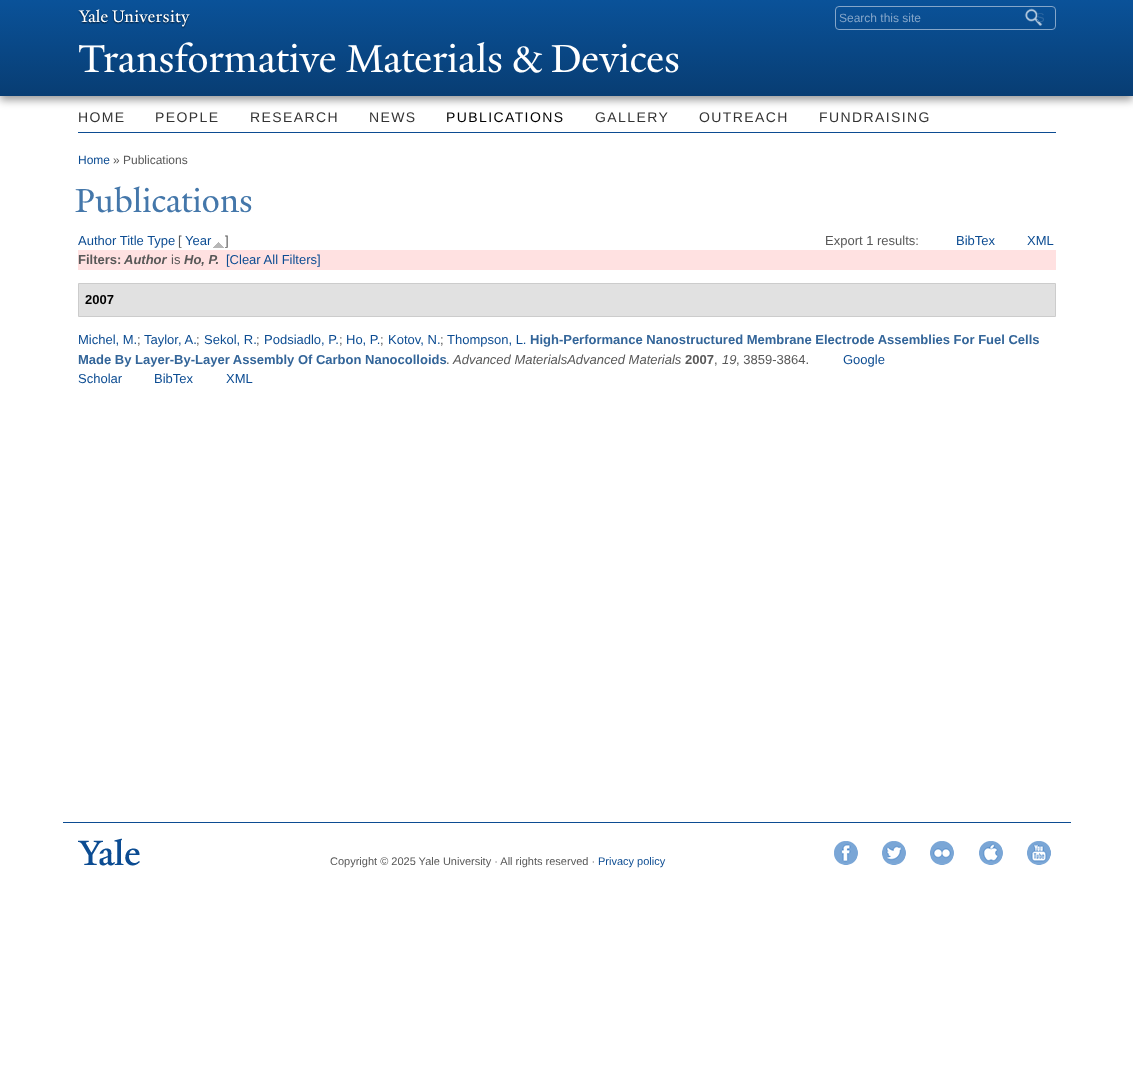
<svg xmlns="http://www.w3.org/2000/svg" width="1133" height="1071">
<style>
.a{font:12px Liberation Sans;fill:#85a6c9}
.b{font:13px Liberation Sans;fill:#2d67a1}
.c{font:42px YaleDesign;letter-spacing:-2px;fill:#fff}
.d{font:42px YaleDesign;fill:#fff}
.e{font:14px Liberation Sans;letter-spacing:1.4px;fill:#333}
.f{font:14px Liberation Sans;letter-spacing:1.4px;fill:#000}
.g{font:12px Liberation Sans;fill:#0c4c92}
.h{font:12px Liberation Sans;fill:#585858}
.i{font:36px YaleDesign;fill:#47a}
.j{font:13px Liberation Sans;fill:#0c4c92}
.k{font:13px Liberation Sans;fill:#585858}
.l{font:bold 13px Liberation Sans;fill:#585858}
.m{font:italic bold 13px Liberation Sans;fill:#585858}
.n{font:bold 13px Liberation Sans;fill:#000}
.o{font:bold 13px Liberation Sans;fill:#336599}
.p{font:italic 13px Liberation Sans;fill:#585858}
.q{font:11px Liberation Sans;fill:#585858}
.r{font:11px Liberation Sans;fill:#0c4c92}
</style>
<defs>
<linearGradient id="g1" gradientUnits="userSpaceOnUse" x1="567" y1="0" x2="567" y2="96"><stop offset="0" stop-color="#0a5299"/><stop offset="1" stop-color="#083d73"/></linearGradient>
</defs>
<rect width="100%" height="100%" fill="#fff"/>
<path fill="#00000066" filter="blur(4px)" d="M0 4h1133v96H0z"/>
<path fill="url(#g1)" d="M0 0h1133v96H0z"/>
<image href="1.png" x="78" y="9" width="112" height="20"/>
<rect fill="none" stroke="#85a6c9" x="835.5" y="6.5" width="220" height="23" rx="3.5"/>
<image href="2.png" x="1024" y="8" width="19" height="18"/>
<path fill="#0c4c92" d="M78 132h978v1H78z"/>
<image href="3.png" x="213" y="242" width="11" height="6"/>
<path fill="#ffe1e1" d="M78 250h978v20H78z"/>
<path fill="#e1e1e1" stroke="#ccc" d="M78.5 283.5h977v33H78.5z"/>
<path fill="#0c4c92" d="M63 822h1008v1H63z"/>
<image href="4.png" x="78" y="838" width="62" height="28"/>
<image href="5.png" x="834" y="841" width="24" height="24"/>
<image href="6.png" x="882" y="841" width="24" height="24"/>
<image href="7.png" x="930" y="841" width="24" height="24"/>
<image href="8.png" x="979" y="841" width="24" height="24"/>
<image href="9.png" x="1027" y="841" width="24" height="24"/>
<text class="a" x="839" y="22">Search this site</text>
<text class="b" x="1036" y="22">S</text>
<text class="c" x="78" y="72">T</text>
<text class="d" x="103" y="72">ransformative Materials &amp; Devices</text>
<text class="e" x="78" y="122">HOME</text>
<text class="e" x="155" y="122">PEOPLE</text>
<text class="e" x="250" y="122">RESEARCH</text>
<text class="e" x="369" y="122">NEWS</text>
<text class="f" x="446" y="122">PUBLICATIONS</text>
<text class="e" x="595" y="122">GALLERY</text>
<text class="e" x="699" y="122">OUTREACH</text>
<text class="e" x="819" y="122">FUNDRAISING</text>
<text class="g" x="78" y="164">Home</text>
<text class="h" x="113" y="164">» Publications</text>
<text class="i" x="75" y="212">Publications</text>
<text class="j" x="78" y="245">Author Title Type</text>
<text class="k" x="178" y="245">[</text>
<text class="j" x="185" y="245">Year</text>
<text class="k" x="225" y="245">]</text>
<text class="k" x="825" y="245">Export 1 results:</text>
<text class="j" x="956" y="245">BibTex</text>
<text class="j" x="1027" y="245">XML</text>
<text class="l" x="78" y="264">Filters:</text>
<text class="m" x="124" y="264">Author</text>
<text class="k" x="171" y="264">is</text>
<text class="m" x="184" y="264">Ho, P.</text>
<text class="j" x="226" y="264">[Clear All Filters]</text>
<text class="n" x="85" y="304">2007</text>
<text class="j" x="78" y="344">Michel, M.</text>
<text class="k" x="137" y="344">;</text>
<text class="j" x="144" y="344">Taylor, A.</text>
<text class="k" x="196" y="344">;</text>
<text class="j" x="204" y="344">Sekol, R.</text>
<text class="k" x="256" y="344">;</text>
<text class="j" x="264" y="344">Podsiadlo, P.</text>
<text class="k" x="339" y="344">;</text>
<text class="j" x="346" y="344">Ho, P.</text>
<text class="k" x="380" y="344">;</text>
<text class="j" x="388" y="344">Kotov, N.</text>
<text class="k" x="440" y="344">;</text>
<text class="j" x="447" y="344">Thompson, L.</text>
<text class="o" x="530" y="344">High-Performance Nanostructured Membrane Electrode Assemblies For Fuel Cells</text>
<text class="o" x="78" y="364">Made By Layer-By-Layer Assembly Of Carbon Nanocolloids</text>
<text class="k" x="446" y="364">.</text>
<text class="p" x="453" y="364">Advanced MaterialsAdvanced Materials</text>
<text class="l" x="685" y="364">2007</text>
<text class="k" x="714" y="364">,</text>
<text class="p" x="722" y="364">19</text>
<text class="k" x="736" y="364">, 3859-3864.</text>
<text class="j" x="843" y="364">Google</text>
<text class="j" x="78" y="383">Scholar</text>
<text class="j" x="154" y="383">BibTex</text>
<text class="j" x="226" y="383">XML</text>
<text class="q" x="330" y="865">Copyright © 2025 Yale University · All rights reserved ·</text>
<text class="r" x="598" y="865">Privacy policy</text>
</svg>
